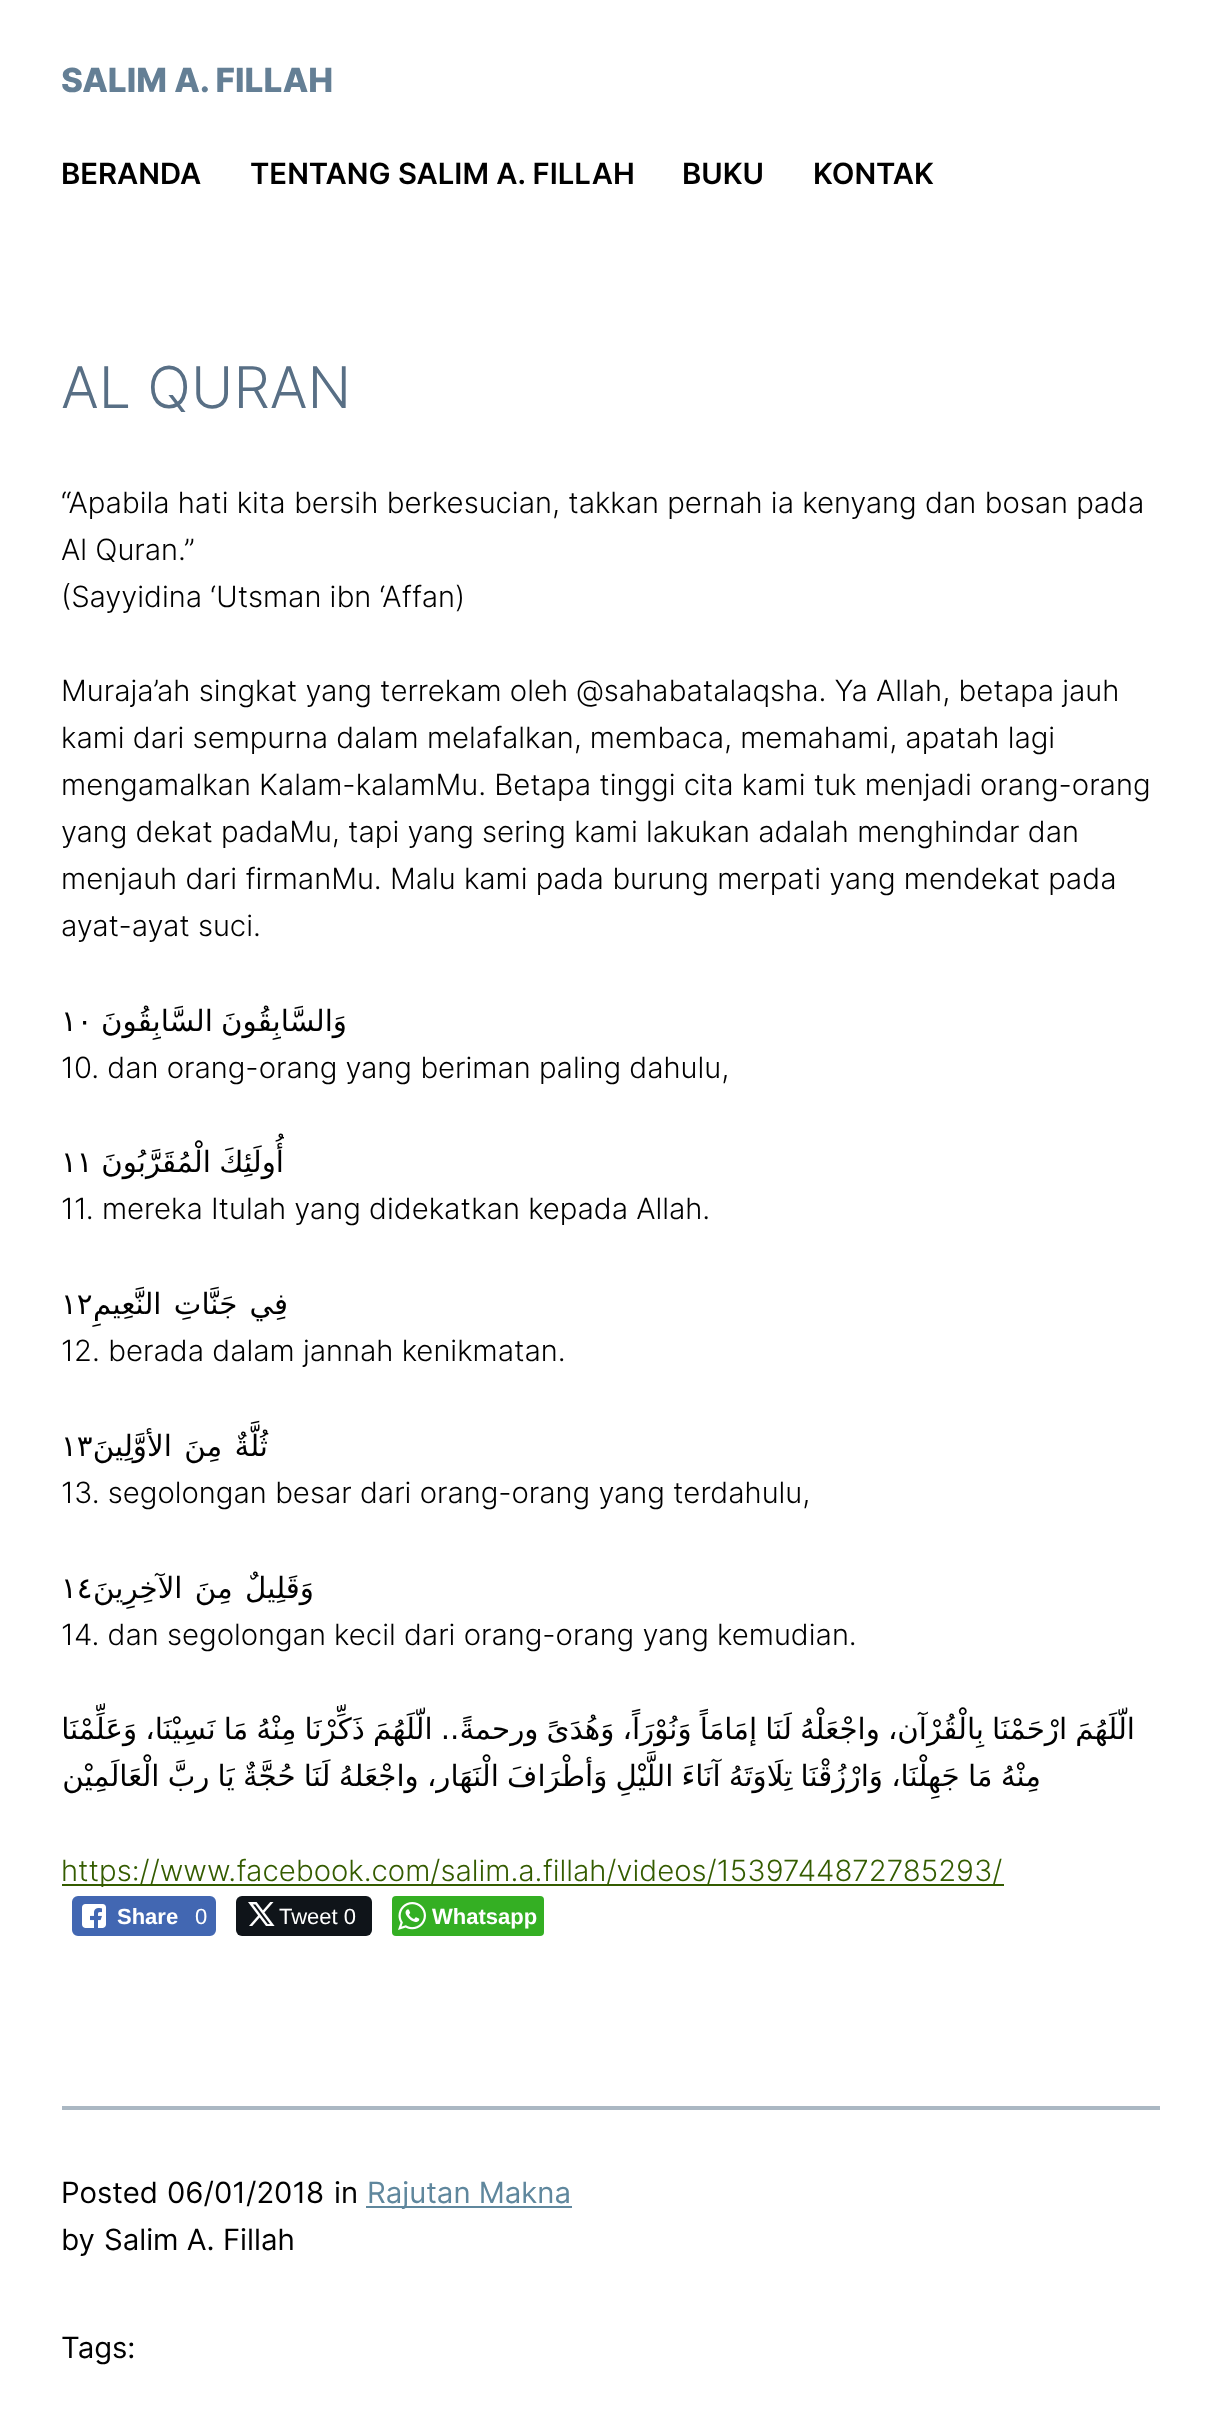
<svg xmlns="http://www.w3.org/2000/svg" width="1221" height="2415">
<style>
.a{font:800 33.25px Inter;fill:#647f95}
.b{font:600 29.3px Inter;fill:#000}
.c{font:300 57.5px Inter;fill:#586f85}
.d{font:300 29.3px Inter;fill:#000}
.e{font:29.3px DejaVu Sans;fill:#000}
.f{font:29.3px DejaVu Sans;direction:rtl;fill:#000}
.g{font:300 29.3px Inter;fill:#345c00}
.h{font:bold 22px Liberation Sans;fill:#fff}
.i{font:22px Liberation Sans;fill:#fff}
.j{font:29.3px Inter;fill:#000}
.k{font:29.3px Inter;fill:#5f879d}
</style>
<rect width="100%" height="100%" fill="#fff"/>
<path fill="#345c00" d="M62 1884h942v2H62z"/>
<rect fill="#4267b2" stroke="#4267b2" stroke-width="2" x="73" y="1897" width="142" height="38" rx="5"/>
<image href="1.png" x="82" y="1904" width="24" height="24"/>
<rect fill="#0f1419" x="236" y="1896" width="136" height="40" rx="6"/>
<image href="2.png" x="248" y="1902" width="27" height="24"/>
<rect fill="#34af23" x="392" y="1896" width="152" height="40" rx="4"/>
<image href="3.png" x="398" y="1902" width="28" height="28"/>
<path fill="#abb8c3" d="M62 2106h1098v4H62z"/>
<path fill="#5f879d" d="M366 2206h206v2H366z"/>
<text class="a" x="61" y="92">SALIM A. FILLAH</text>
<text class="b" x="61" y="184">BERANDA</text>
<text class="b" x="250" y="184">TENTANG SALIM A. FILLAH</text>
<text class="b" x="682" y="184">BUKU</text>
<text class="b" x="813" y="184">KONTAK</text>
<text class="c" x="61" y="408">AL QURAN</text>
<text class="d" x="61" y="513">“Apabila hati kita bersih berkesucian, takkan pernah ia kenyang dan bosan pada</text>
<text class="d" x="61" y="560">Al Quran.”</text>
<text class="d" x="61" y="607">(Sayyidina ‘Utsman ibn ‘Affan)</text>
<text class="d" x="61" y="701">Muraja’ah singkat yang terrekam oleh @sahabatalaqsha. Ya Allah, betapa jauh</text>
<text class="d" x="61" y="748">kami dari sempurna dalam melafalkan, membaca, memahami, apatah lagi</text>
<text class="d" x="61" y="795">mengamalkan Kalam-kalamMu. Betapa tinggi cita kami tuk menjadi orang-orang</text>
<text class="d" x="61" y="842">yang dekat padaMu, tapi yang sering kami lakukan adalah menghindar dan</text>
<text class="d" x="61" y="889">menjauh dari firmanMu. Malu kami pada burung merpati yang mendekat pada</text>
<text class="d" x="61" y="936">ayat-ayat suci.</text>
<text class="e" x="61" y="1031">١٠</text>
<text class="f" x="347" y="1031" word-spacing="-1">وَالسَّابِقُونَ السَّابِقُونَ</text>
<text class="d" x="61" y="1078">10. dan orang-orang yang beriman paling dahulu,</text>
<text class="e" x="61" y="1172">١١</text>
<text class="f" x="284" y="1172" word-spacing="-1">أُولَئِكَ الْمُقَرَّبُونَ</text>
<text class="d" x="61" y="1219">11. mereka Itulah yang didekatkan kepada Allah.</text>
<text class="e" x="61" y="1314">١٢</text>
<text class="f" x="288" y="1314" word-spacing="3">فِي جَنَّاتِ النَّعِيمِ</text>
<text class="d" x="61" y="1361">12. berada dalam jannah kenikmatan.</text>
<text class="e" x="61" y="1456">١٣</text>
<text class="f" x="268" y="1456" word-spacing="3">ثُلَّةٌ مِنَ الأوَّلِينَ</text>
<text class="d" x="61" y="1503">13. segolongan besar dari orang-orang yang terdahulu,</text>
<text class="e" x="61" y="1598">١٤</text>
<text class="f" x="314" y="1598" word-spacing="3">وَقَلِيلٌ مِنَ الآخِرِينَ</text>
<text class="d" x="61" y="1645">14. dan segolongan kecil dari orang-orang yang kemudian.</text>
<text class="f" x="1135" y="1739" word-spacing="-1.25">الّلَهُمَ ارْحَمْنَا بِالْقُرْآن، واجْعَلْهُ لَنَا إمَامَاً وَنُوْرَاً، وَهُدَىً ورحمةً.. الّلَهُمَ ذَكِّرْنَا مِنْهُ مَا نَسِيْنَا، وَعَلِّمْنَا</text>
<text class="f" x="1041" y="1786" word-spacing="-1.1">مِنْهُ مَا جَهِلْنَا، وَارْزُقْنَا تِلَاوَتَهُ آنَاءَ اللَّيْلِ وَأطْرَافَ الْنَهَار، واجْعَلهُ لَنَا حُجَّةٌ يَا ربَّ الْعَالَمِيْن</text>
<text class="g" x="61" y="1881">https://www.facebook.com/salim.a.fillah/videos/1539744872785293/</text>
<text class="h" x="117" y="1924">Share</text>
<text class="i" x="195" y="1924">0</text>
<text class="i" x="279" y="1924">Tweet 0</text>
<text class="h" x="432" y="1924">Whatsapp</text>
<text class="j" x="61" y="2203">Posted</text>
<text class="j" x="167" y="2203">06/01/2018</text>
<text class="j" x="334" y="2203">in</text>
<text class="k" x="367" y="2203">Rajutan Makna</text>
<text class="j" x="61" y="2250">by</text>
<text class="j" x="104" y="2250">Salim A. Fillah</text>
<text class="j" x="61" y="2358">Tags:</text>
</svg>
